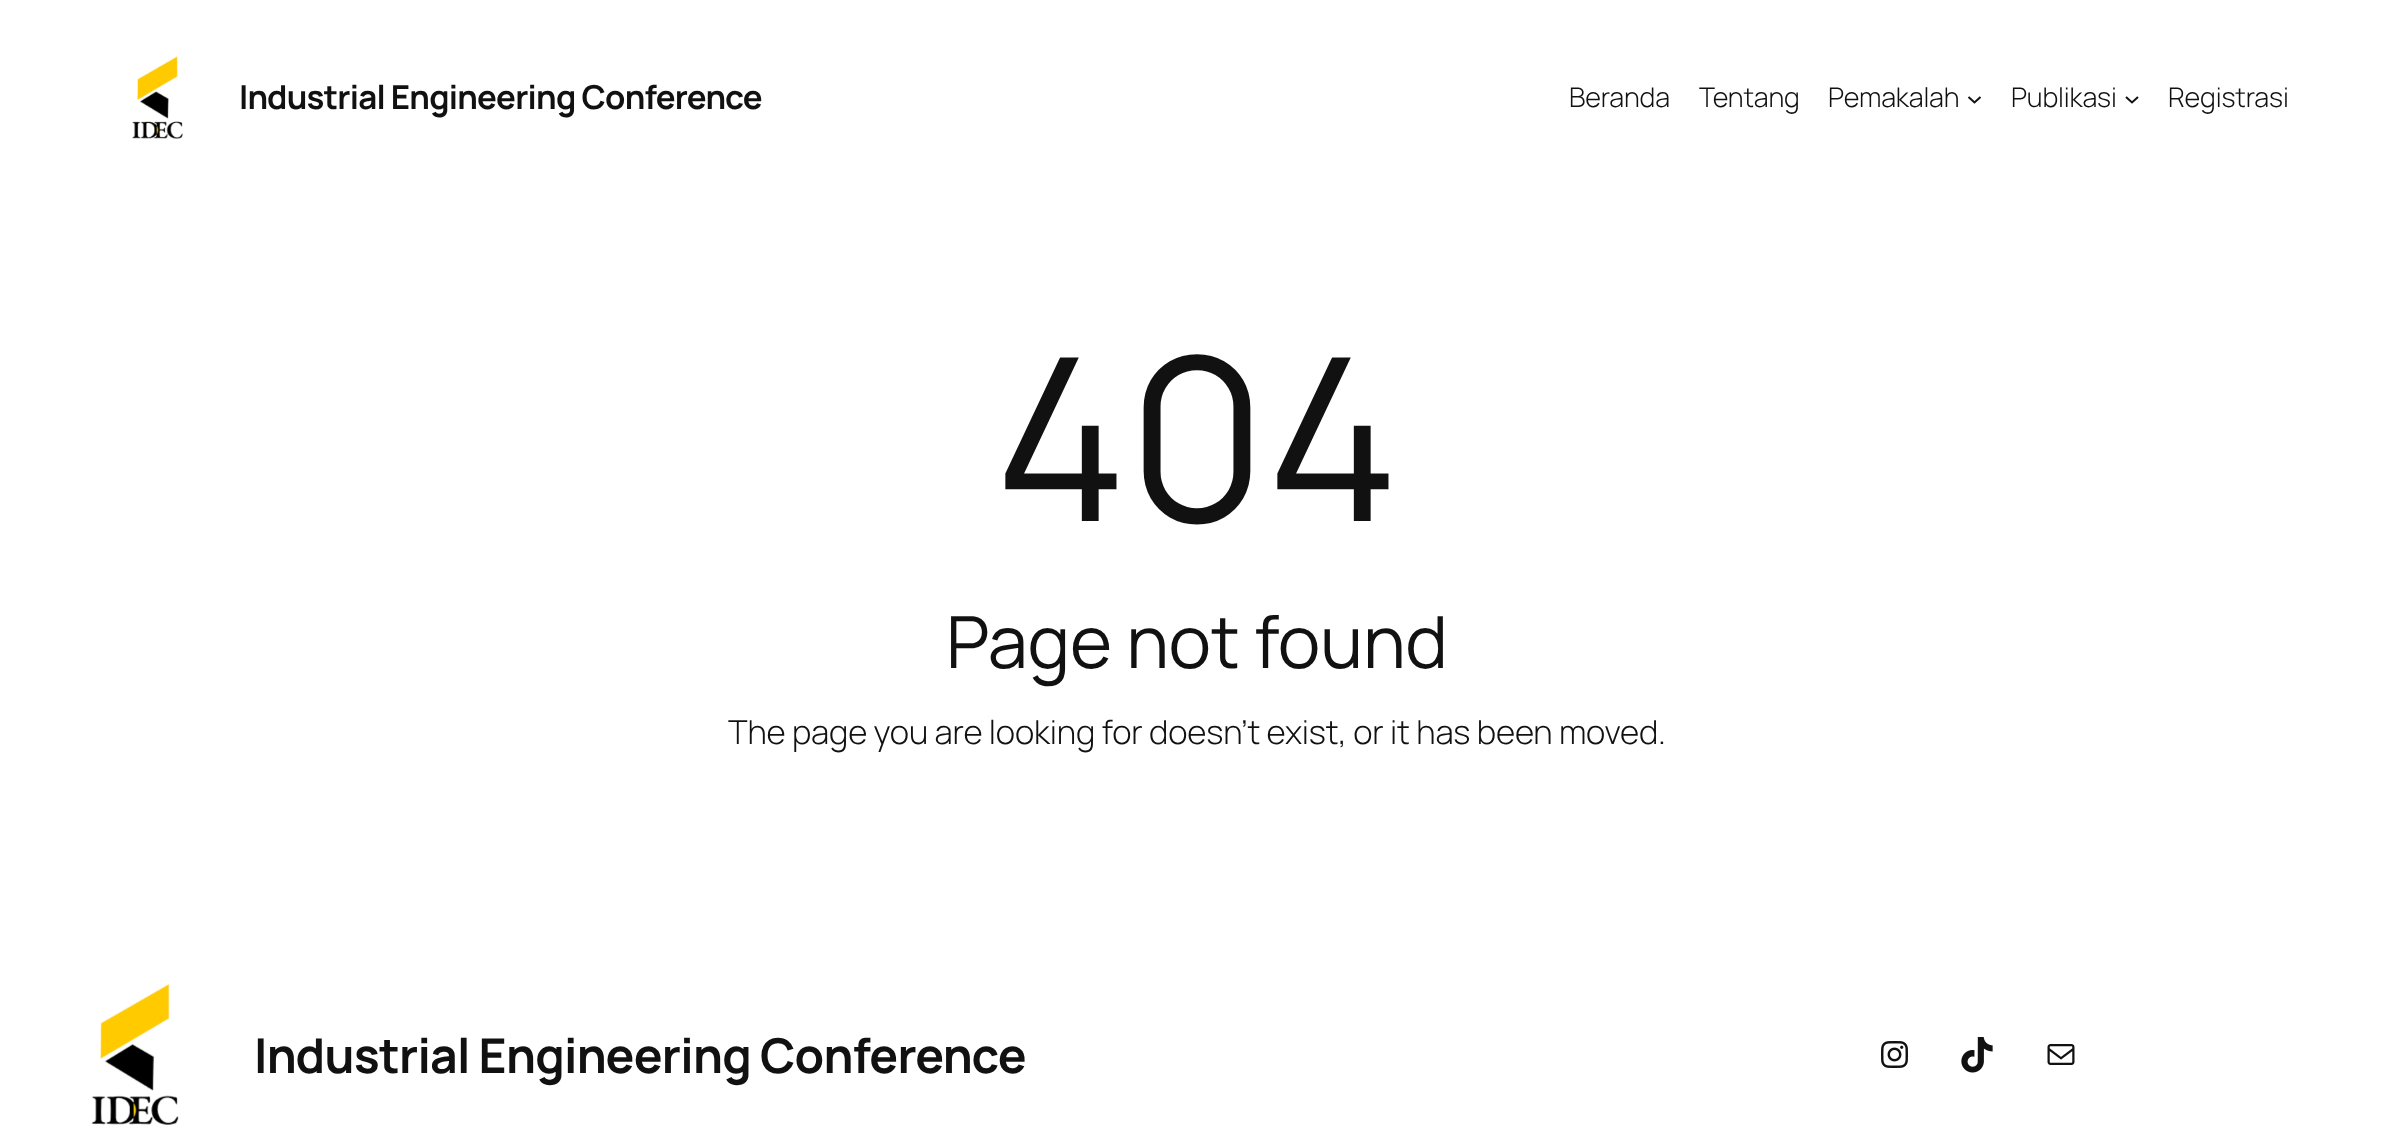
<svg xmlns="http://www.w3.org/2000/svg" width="2393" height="1131">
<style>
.a{font:bold 33px Manrope;letter-spacing:-0.75px;fill:#111}
.b{font:300 27px Manrope;letter-spacing:-0.15px;fill:#111}
.c{font:227px Manrope;letter-spacing:-0.15px;fill:#111}
.d{font:72px Manrope;letter-spacing:-0.15px;fill:#111}
.e{font:300 33px Manrope;letter-spacing:-0.15px;fill:#111}
.f{font:bold 48px Manrope;letter-spacing:-0.75px;fill:#111}
</style>
<rect width="100%" height="100%" fill="#fff"/>
<image href="1.png" x="132" y="56" width="51" height="83"/>
<path fill="none" stroke="#111" stroke-width="2" d="M1968.5 97l6 5.5l6-5.5"/>
<path fill="none" stroke="#111" stroke-width="2" d="M2126 97l6 5.5l6-5.5"/>
<image href="2.png" x="91" y="984" width="88" height="141"/>
<image href="3.png" x="1881" y="1041" width="27" height="27"/>
<image href="4.png" x="1961" y="1037" width="32" height="36"/>
<image href="5.png" x="2047" y="1044" width="28" height="21"/>
<text class="a" x="239" y="109">Industrial Engineering Conference</text>
<text class="b" x="1569" y="107">Beranda</text>
<text class="b" x="1699" y="107">Tentang</text>
<text class="b" x="1828" y="107">Pemakalah</text>
<text class="b" x="2011" y="107">Publikasi</text>
<text class="b" x="2168" y="107">Registrasi</text>
<text class="c" x="994" y="521">404</text>
<text class="d" x="946" y="668">Page not found</text>
<text class="e" x="728" y="744">The page you are looking for doesn’t exist, or it has been moved.</text>
<text class="f" x="254" y="1073">Industrial Engineering Conference</text>
</svg>
